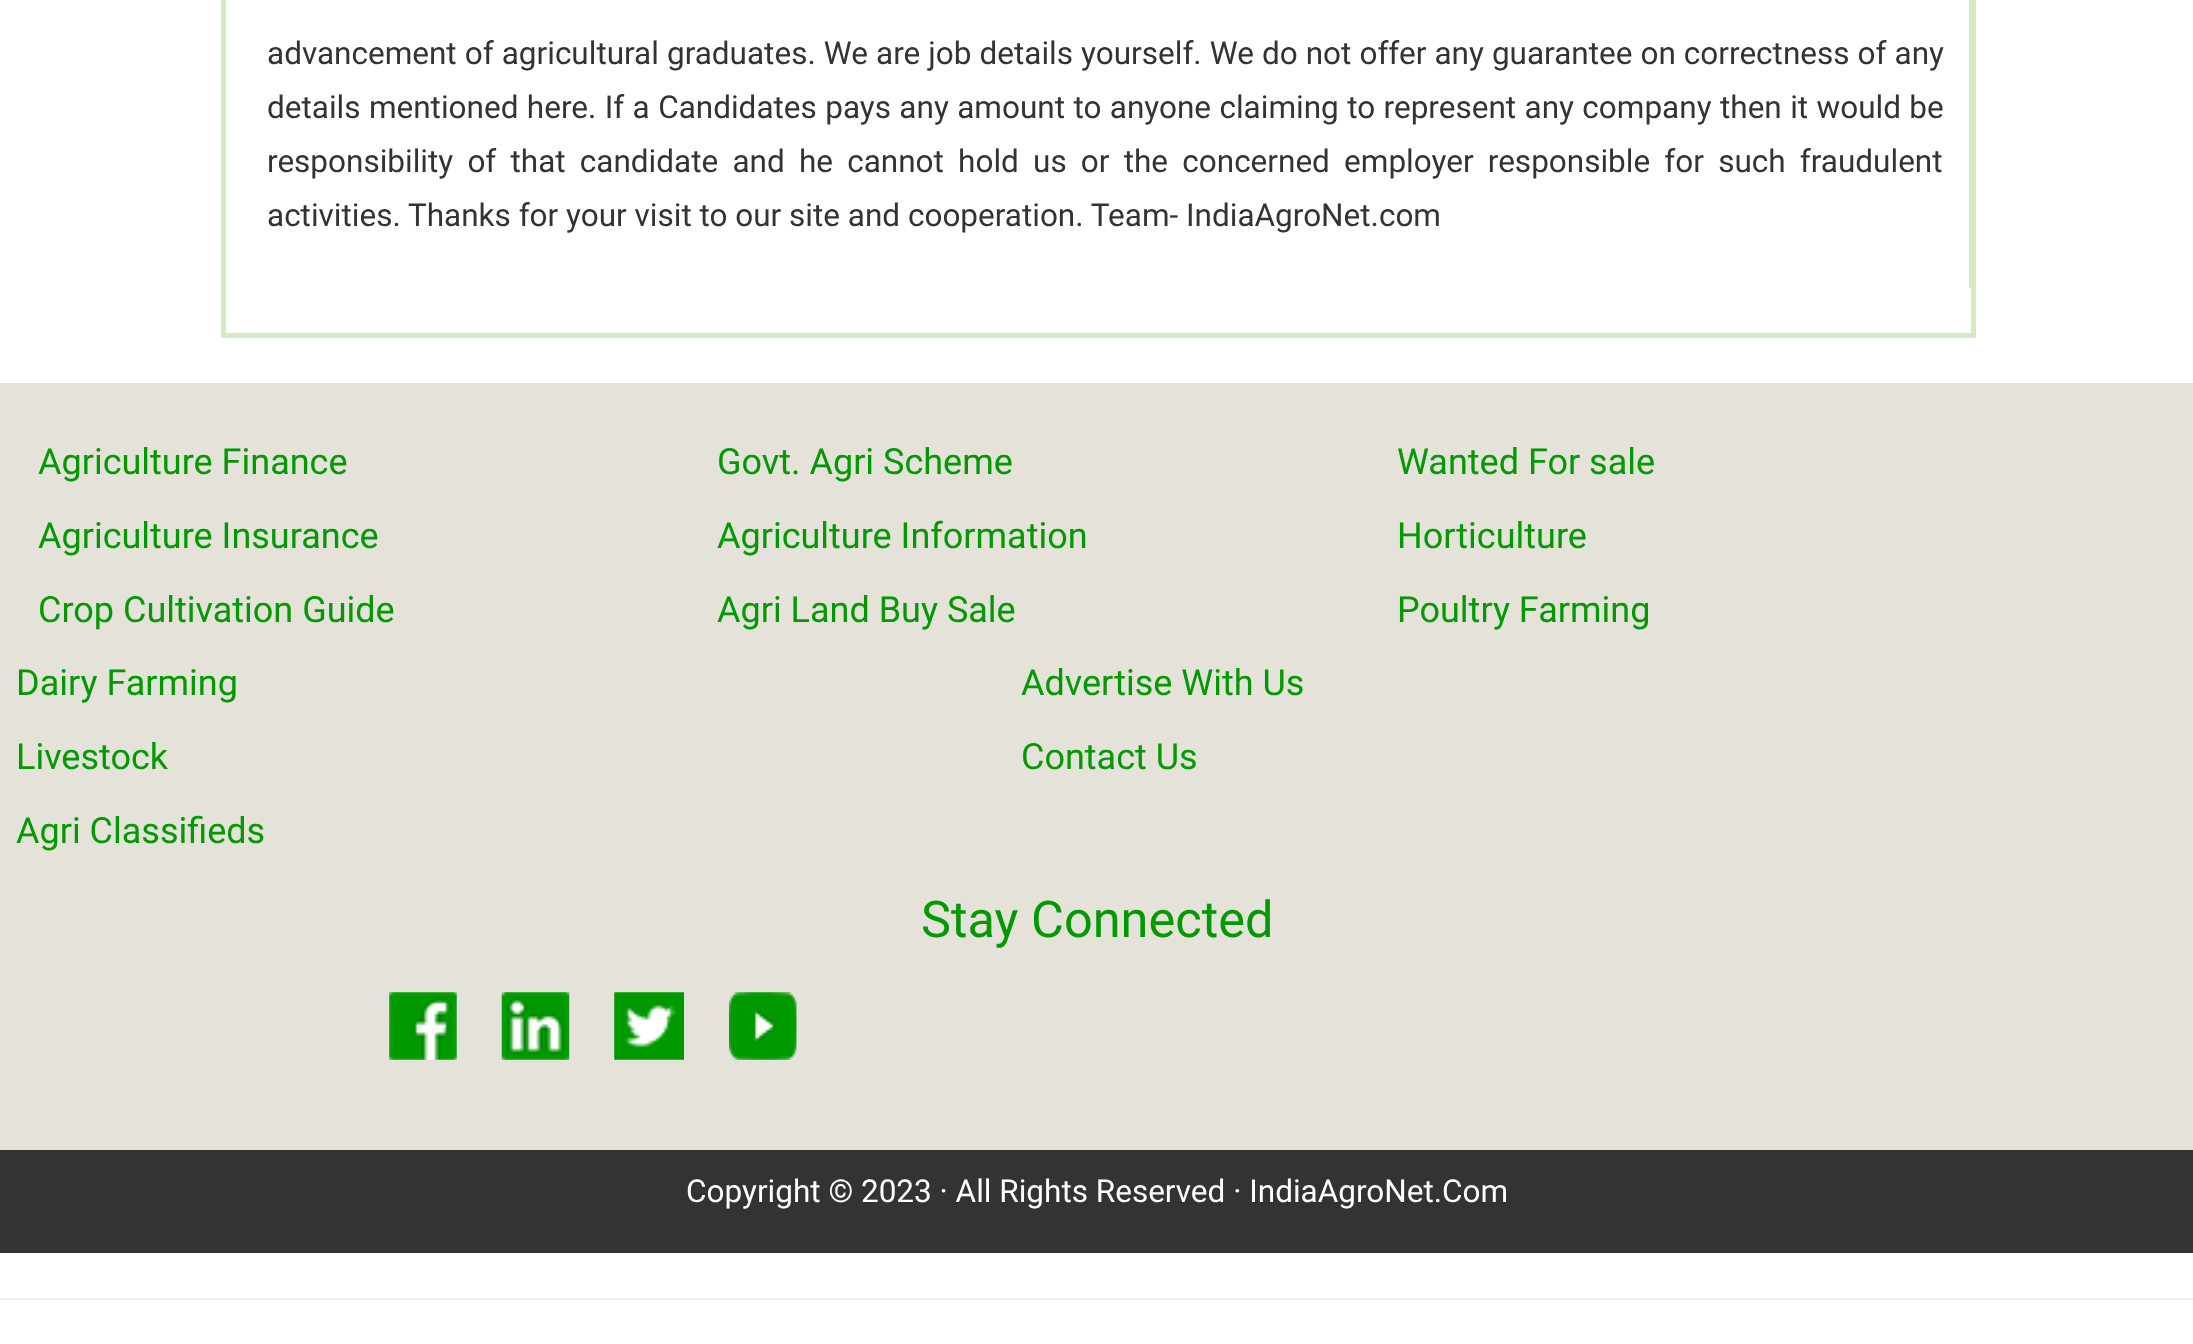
<svg xmlns="http://www.w3.org/2000/svg" width="2193" height="1344">
<style>
.a{font:31.5px Roboto;fill:#333}
.b{font:36px Roboto;fill:#090}
.c{font:50.5px Roboto;fill:#090}
.d{font:31.5px Roboto;fill:#fff}
</style>
<rect width="100%" height="100%" fill="#fff"/>
<path fill="none" stroke="#d6e9c6" stroke-width="5" d="M223.5 -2.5h1750v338H223.5z"/>
<path fill="#d6e9c6" d="M1969 0h2v288H1969z"/>
<path fill="#e4e2d9" d="M0 383h2193v767H0z"/>
<image href="1.png" x="389" y="992" width="68" height="68"/>
<image href="2.png" x="501" y="992" width="69" height="68"/>
<image href="3.png" x="614" y="992" width="70" height="68"/>
<image href="4.png" x="729" y="992" width="68" height="68"/>
<path fill="#333" d="M0 1150h2193v103H0z"/>
<path fill="#eee" d="M0 1298h2193v2H0z"/>
<text class="a" x="267" y="64" word-spacing="0.25">advancement of agricultural graduates. We are job details yourself. We do not offer any guarantee on correctness of any</text>
<text class="a" x="267" y="118" word-spacing="0.6">details mentioned here. If a Candidates pays any amount to anyone claiming to represent any company then it would be</text>
<text class="a" x="267" y="172" word-spacing="6.4">responsibility of that candidate and he cannot hold us or the concerned employer responsible for such fraudulent</text>
<text class="a" x="267" y="226">activities. Thanks for your visit to our site and cooperation. Team- IndiaAgroNet.com</text>
<text class="b" x="38" y="474">Agriculture Finance</text>
<text class="b" x="38" y="548">Agriculture Insurance</text>
<text class="b" x="38" y="622">Crop Cultivation Guide</text>
<text class="b" x="717" y="474">Govt. Agri Scheme</text>
<text class="b" x="717" y="548">Agriculture Information</text>
<text class="b" x="717" y="622">Agri Land Buy Sale</text>
<text class="b" x="1397" y="474">Wanted For sale</text>
<text class="b" x="1397" y="548">Horticulture</text>
<text class="b" x="1397" y="622">Poultry Farming</text>
<text class="b" x="16" y="695">Dairy Farming</text>
<text class="b" x="16" y="769">Livestock</text>
<text class="b" x="16" y="843">Agri Classifieds</text>
<text class="b" x="1021" y="695">Advertise With Us</text>
<text class="b" x="1021" y="769">Contact Us</text>
<text class="c" x="921" y="937">Stay Connected</text>
<text class="d" x="686" y="1202">Copyright © 2023 · All Rights Reserved · IndiaAgroNet.Com</text>
</svg>
